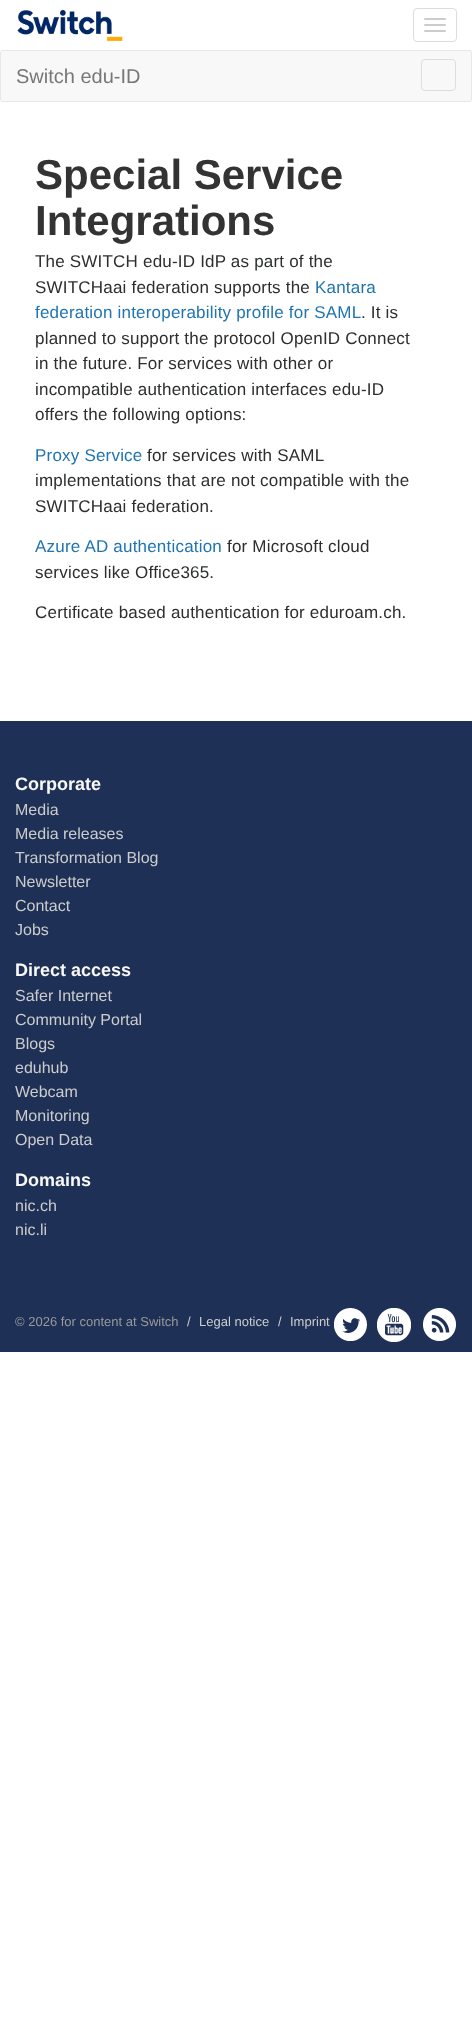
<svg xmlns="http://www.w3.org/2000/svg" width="472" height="2020">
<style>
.a{font:20px Liberation Sans;fill:#777}
.b{font:bold 42px Liberation Sans;fill:#333}
.c{font:17px Liberation Sans;letter-spacing:0.2px;fill:#2c2e2f}
.d{font:17px Liberation Sans;letter-spacing:0.2px;fill:#2075b1}
.e{font:bold 18px Liberation Sans;fill:#f8f8f8}
.f{font:16px Liberation Sans;fill:#ccc}
.g{font:13px Liberation Sans;fill:#999}
.h{font:13px Liberation Sans;fill:#ccc}
</style>
<rect width="100%" height="100%" fill="#fff"/>
<rect fill="#f8f8f8" stroke="#e7e7e7" x="0.5" y="50.5" width="471" height="51" rx="2.5"/>
<path fill="#e7e7e7" d="M470 50h1v1H470z"/>
<image href="1.png" x="17" y="10" width="106" height="31"/>
<rect fill="none" stroke="#ddd" x="413.5" y="8.5" width="43" height="33" rx="3.5"/>
<rect fill="#ccc" x="424" y="18" width="22" height="2" rx="1"/>
<rect fill="#ccc" x="424" y="24" width="22" height="2" rx="1"/>
<rect fill="#ccc" x="424" y="30" width="22" height="2" rx="1"/>
<rect fill="none" stroke="#ddd" x="421.5" y="59.5" width="34" height="31" rx="3.5"/>
<path fill="#1e3056" d="M0 721h472v631H0z"/>
<image href="2.png" x="334" y="1308" width="33" height="33"/>
<image href="3.png" x="377" y="1308" width="34" height="34"/>
<image href="4.png" x="423" y="1308" width="33" height="33"/>
<text class="a" x="16" y="83">Switch edu-ID</text>
<text class="b" x="35" y="189">Special Service</text>
<text class="b" x="35" y="235">Integrations</text>
<text class="c" x="35" y="267">The SWITCH edu-ID IdP as part of the</text>
<text class="c" x="35" y="293">SWITCHaai federation supports the</text>
<text class="d" x="315" y="293">Kantara</text>
<text class="d" x="35" y="318">federation interoperability profile for SAML</text>
<text class="c" x="361" y="318">. It is</text>
<text class="c" x="35" y="344">planned to support the protocol OpenID Connect</text>
<text class="c" x="35" y="369">in the future. For services with other or</text>
<text class="c" x="35" y="395">incompatible authentication interfaces edu-ID</text>
<text class="c" x="35" y="420">offers the following options:</text>
<text class="d" x="35" y="461">Proxy Service</text>
<text class="c" x="147" y="461">for services with SAML</text>
<text class="c" x="35" y="486">implementations that are not compatible with the</text>
<text class="c" x="35" y="512">SWITCHaai federation.</text>
<text class="d" x="35" y="552">Azure AD authentication</text>
<text class="c" x="227" y="552">for Microsoft cloud</text>
<text class="c" x="35" y="578">services like Office365.</text>
<text class="c" x="35" y="618">Certificate based authentication for eduroam.ch.</text>
<text class="e" x="15" y="790">Corporate</text>
<text class="f" x="15" y="815">Media</text>
<text class="f" x="15" y="839">Media releases</text>
<text class="f" x="15" y="863">Transformation Blog</text>
<text class="f" x="15" y="887">Newsletter</text>
<text class="f" x="15" y="911">Contact</text>
<text class="f" x="15" y="935">Jobs</text>
<text class="e" x="15" y="976">Direct access</text>
<text class="f" x="15" y="1001">Safer Internet</text>
<text class="f" x="15" y="1025">Community Portal</text>
<text class="f" x="15" y="1049">Blogs</text>
<text class="f" x="15" y="1073">eduhub</text>
<text class="f" x="15" y="1097">Webcam</text>
<text class="f" x="15" y="1121">Monitoring</text>
<text class="f" x="15" y="1145">Open Data</text>
<text class="e" x="15" y="1186">Domains</text>
<text class="f" x="15" y="1211">nic.ch</text>
<text class="f" x="15" y="1235">nic.li</text>
<text class="g" x="15" y="1326">© 2026 for content at Switch</text>
<text class="h" x="187" y="1326">/</text>
<text class="h" x="199" y="1326">Legal notice</text>
<text class="h" x="278" y="1326">/</text>
<text class="h" x="290" y="1326">Imprint</text>
</svg>
